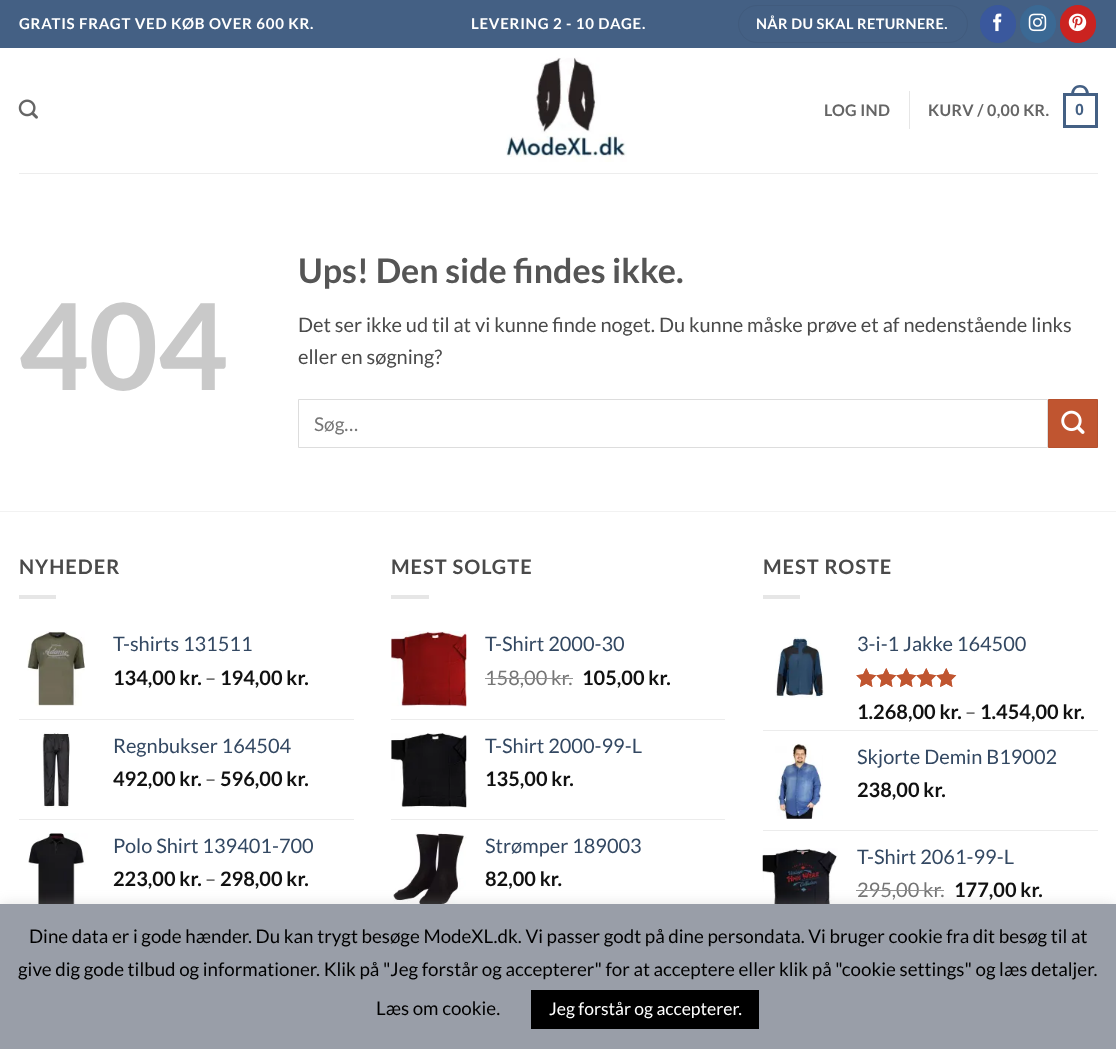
<svg xmlns="http://www.w3.org/2000/svg" width="1116" height="1049">
<style>
.a{font:bold 15px Lato;letter-spacing:0.75px;fill:#fff}
.b{font:bold 14.5px Lato;letter-spacing:0.4px;fill:#fff}
.c{font:bold 16px Lato;letter-spacing:0.3px;fill:#656565}
.d{font:bold 16px Liberation Sans;letter-spacing:0.3px;fill:#446084}
.e{font:bold 120px Lato;fill:#c9c9c9}
.f{font:bold 34px Lato;fill:#555}
.g{font:20px Lato;fill:#4a4a4a}
.h{font:19px Lato;fill:#757575}
.i{font:bold 20px Lato;letter-spacing:1px;fill:#4a4a4a}
.j{font:20px Lato;fill:#334862}
.k{font:bold 20px Lato;fill:#111}
.l{font:20px Lato;fill:#757575}
.m{font:18.75px Lato;fill:#000}
.n{font:17.5px Lato;fill:#fff}
</style>
<defs>
<clipPath id="clip1"><path d="M113 631h241v27H113z"/></clipPath>
</defs>
<rect width="100%" height="100%" fill="#fff"/>
<path fill="#446084" d="M0 0h1116v48H0z"/>
<rect fill="none" stroke="#415b7d" x="738.5" y="5.5" width="229" height="37" rx="18.5"/>
<rect fill="#3a589d" stroke="#3a589d" x="980.5" y="5.5" width="35" height="37" rx="17.5"/>
<image href="1.png" x="993" y="13" width="9" height="19"/>
<rect fill="#3b6994" stroke="#3b6994" x="1020.5" y="5.5" width="35" height="37" rx="17.5"/>
<image href="2.png" x="1028" y="13" width="19" height="19"/>
<rect fill="#cb2320" stroke="#cb2320" x="1060.5" y="5.5" width="35" height="37" rx="17.5"/>
<image href="3.png" x="1068" y="13" width="19" height="19"/>
<image href="4.png" x="18" y="99" width="20" height="20"/>
<image href="5.png" x="506" y="57" width="121" height="105"/>
<path fill="#e6e6e6" d="M909 91h1v38H909z"/>
<path fill="none" stroke="#446084" stroke-width="3" d="M1064.5 94.5h32v32H1064.5z"/>
<path fill="#446084" fill-rule="evenodd" d="M1080 85c6 0 9 4.5 9 10h-18c0-5.5 3-10 9-10zm0 2.5c4.5 0 6 3.5 6 7.5h-12c0-4 1.5-7.5 6-7.5z"/>
<path fill="#ededed" d="M19 173h1079v1H19z"/>
<path fill="none" stroke="#ddd" d="M298.5 399.5h749v48H298.5z"/>
<path fill="#c05530" stroke="#b6512e" d="M1048.5 399.5h49v48H1048.5z"/>
<image href="6.png" x="1061" y="410" width="24" height="24"/>
<path fill="#f2f2f2" d="M0 511h1116v1H0z"/>
<path fill="#e6e6e6" d="M19 595h37v4H19z"/>
<image href="7.png" x="27" y="631" width="58" height="75"/>
<path fill="#ececec" d="M19 719h335v1H19z"/>
<image href="8.png" x="42" y="732" width="28" height="76"/>
<path fill="#ececec" d="M19 819h335v1H19z"/>
<image href="9.png" x="28" y="833" width="60" height="71"/>
<path fill="#e6e6e6" d="M391 595h38v4H391z"/>
<image href="10.png" x="391" y="631" width="76" height="76"/>
<path fill="#ececec" d="M391 719h334v1H391z"/>
<image href="11.png" x="391" y="733" width="76" height="75"/>
<path fill="#ececec" d="M391 819h334v1H391z"/>
<image href="12.png" x="393" y="832" width="74" height="72"/>
<path fill="#e6e6e6" d="M763 595h37v4H763z"/>
<image href="13.png" x="775" y="637" width="50" height="61"/>
<image href="14.png" x="856" y="668" width="101" height="19"/>
<image href="15.png" x="856" y="668" width="101" height="19"/>
<path fill="#ececec" d="M763 730h335v1H763z"/>
<image href="16.png" x="775" y="744" width="48" height="75"/>
<path fill="#ececec" d="M763 830h335v1H763z"/>
<image href="17.png" x="762" y="848" width="76" height="56"/>
<text class="a" x="19" y="29">GRATIS FRAGT VED KØB OVER 600 KR.</text>
<text class="a" x="471" y="29">LEVERING 2 - 10 DAGE.</text>
<text class="b" x="756" y="29">NÅR DU SKAL RETURNERE.</text>
<text class="c" x="824" y="116">LOG IND</text>
<text class="c" x="928" y="116">KURV / 0,00 KR.</text>
<text class="d" x="1075" y="115">0</text>
<text class="e" x="19" y="390">404</text>
<text class="f" x="298" y="283">Ups! Den side findes ikke.</text>
<text class="g" x="298" y="332">Det ser ikke ud til at vi kunne finde noget. Du kunne måske prøve et af nedenstående links</text>
<text class="g" x="298" y="364">eller en søgning?</text>
<text class="h" x="314" y="431">Søg…</text>
<text class="i" x="19" y="574">NYHEDER</text>
<g clip-path="url(#clip1)">
<text class="j" x="113" y="651">T-shirts 131511</text>
</g>
<text class="k" x="113" y="685">134,00 kr.</text>
<text class="g" x="205" y="685">–</text>
<text class="k" x="220" y="685">194,00 kr.</text>
<text class="j" x="113" y="753">Regnbukser 164504</text>
<text class="k" x="113" y="786">492,00 kr.</text>
<text class="g" x="205" y="786">–</text>
<text class="k" x="220" y="786">596,00 kr.</text>
<text class="j" x="113" y="853">Polo Shirt 139401-700</text>
<text class="k" x="113" y="886">223,00 kr.</text>
<text class="g" x="205" y="886">–</text>
<text class="k" x="220" y="886">298,00 kr.</text>
<text class="i" x="391" y="574">MEST SOLGTE</text>
<text class="j" x="485" y="651">T-Shirt 2000-30</text>
<text class="l" x="485" y="685">158,00 kr.</text>
<path fill="#929292" d="M485 678h88v1H485z"/>
<text class="k" x="582" y="685">105,00 kr.</text>
<text class="j" x="485" y="753">T-Shirt 2000-99-L</text>
<text class="k" x="485" y="786">135,00 kr.</text>
<text class="j" x="485" y="853">Strømper 189003</text>
<text class="k" x="485" y="886">82,00 kr.</text>
<text class="i" x="763" y="574">MEST ROSTE</text>
<text class="j" x="857" y="651">3-i-1 Jakke 164500</text>
<text class="k" x="857" y="719">1.268,00 kr.</text>
<text class="g" x="965" y="719">–</text>
<text class="k" x="980" y="719">1.454,00 kr.</text>
<text class="j" x="857" y="764">Skjorte Demin B19002</text>
<text class="k" x="857" y="797">238,00 kr.</text>
<text class="j" x="857" y="864">T-Shirt 2061-99-L</text>
<text class="l" x="857" y="897">295,00 kr.</text>
<path fill="#929292" d="M856 890h88v1H856z"/>
<text class="k" x="954" y="897">177,00 kr.</text>
<path fill="#acabab4d" filter="blur(6px)" d="M0 903h1116v146H0z"/>
<path fill="#999ea8" d="M0 904h1116v145H0z"/>
<text class="m" x="29" y="943">Dine data er i gode hænder. Du kan trygt besøge ModeXL.dk. Vi passer godt på dine persondata. Vi bruger cookie fra dit besøg til at</text>
<text class="m" x="18" y="976">give dig gode tilbud og informationer. Klik på "Jeg forstår og accepterer" for at acceptere eller klik på "cookie settings" og læs detaljer.</text>
<text class="m" x="376" y="1015">Læs om cookie.</text>
<path fill="#000" d="M531 990h228v39H531z"/>
<text class="n" x="549" y="1015">Jeg forstår og accepterer.</text>
</svg>
